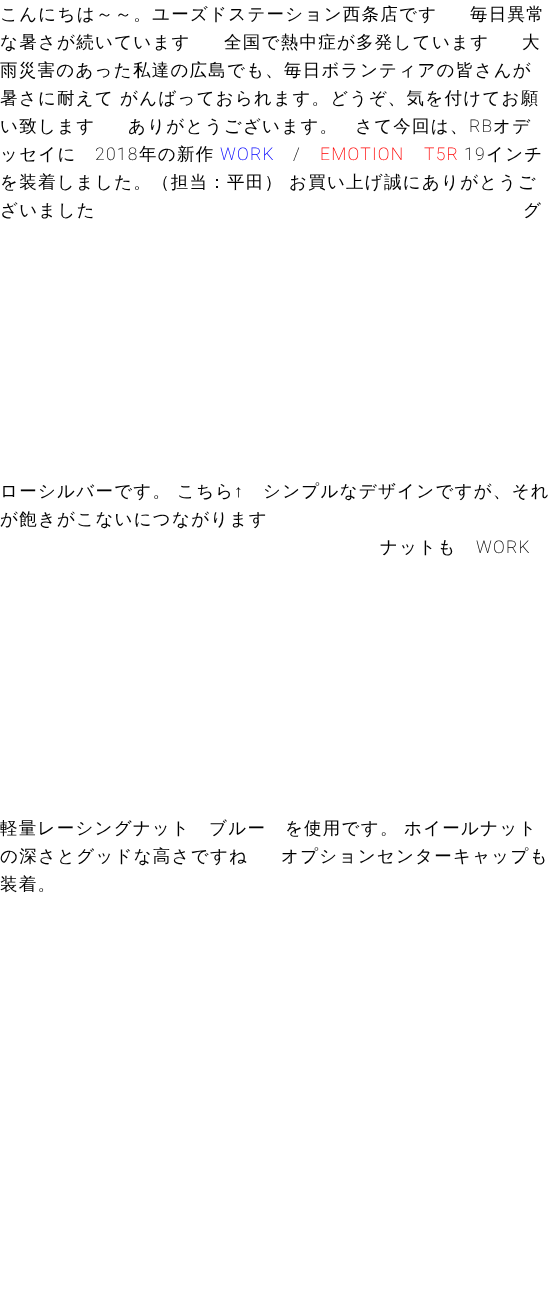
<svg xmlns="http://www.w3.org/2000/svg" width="550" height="1295">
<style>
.a{font:500 17.5px WenQuanYi Zen Hei;letter-spacing:1.25px;fill:#000}
.b{font:200 17.5px Roboto;letter-spacing:1.25px;fill:#000}
.c{font:200 17.5px Roboto;letter-spacing:1.25px;fill:#00f}
.d{font:200 17.5px Roboto;letter-spacing:1.25px;fill:#f00}
.e{font:17.5px Liberation Sans;letter-spacing:1.25px;fill:#000}
</style>
<rect width="100%" height="100%" fill="#fff"/>
<text class="a" x="0" y="20">こんにちは～～。ユーズドステーション西条店です</text>
<text class="a" x="470" y="20">毎日異常</text>
<text class="a" x="0" y="48">な暑さが続いています</text>
<text class="a" x="224" y="48">全国で熱中症が多発しています</text>
<text class="a" x="522" y="48">大</text>
<text class="a" x="0" y="76">雨災害のあった私達の広島でも、毎日ボランティアの皆さんが</text>
<text class="a" x="0" y="104">暑さに耐えて</text>
<text class="a" x="120" y="104">がんばっておられます。どうぞ、気を付けてお願</text>
<text class="a" x="0" y="132">い致します</text>
<text class="a" x="128" y="132">ありがとうございます。</text>
<text class="a" x="355" y="132">さて今回は、</text>
<text class="b" x="469" y="132">RB</text>
<text class="a" x="493" y="132">オデ</text>
<text class="a" x="0" y="160">ッセイに</text>
<text class="b" x="95" y="160">2018</text>
<text class="a" x="139" y="160">年の新作</text>
<text class="c" x="220" y="160">WORK</text>
<text class="b" x="293" y="160">/</text>
<text class="d" x="320" y="160">EMOTION</text>
<text class="d" x="424" y="160">T5R</text>
<text class="b" x="464" y="160">19</text>
<text class="a" x="486" y="160">インチ</text>
<text class="a" x="0" y="188">を装着しました。（担当：平田）</text>
<text class="a" x="289" y="188">お買い上げ誠にありがとうご</text>
<text class="a" x="0" y="216">ざいました</text>
<text class="a" x="523" y="216">グ</text>
<text class="a" x="0" y="497">ローシルバーです。</text>
<text class="a" x="177" y="497">こちら</text>
<text class="e" x="234" y="497">↑</text>
<text class="a" x="263" y="497">シンプルなデザインですが、それ</text>
<text class="a" x="0" y="525">が飽きがこないにつながります</text>
<text class="a" x="380" y="553">ナットも</text>
<text class="b" x="476" y="553">WORK</text>
<text class="a" x="0" y="834">軽量レーシングナット　ブルー　を使用です。</text>
<text class="a" x="404" y="834">ホイールナット</text>
<text class="a" x="0" y="862">の深さとグッドな高さですね</text>
<text class="a" x="281" y="862">オプションセンターキャップも</text>
<text class="a" x="0" y="890">装着。</text>
</svg>
